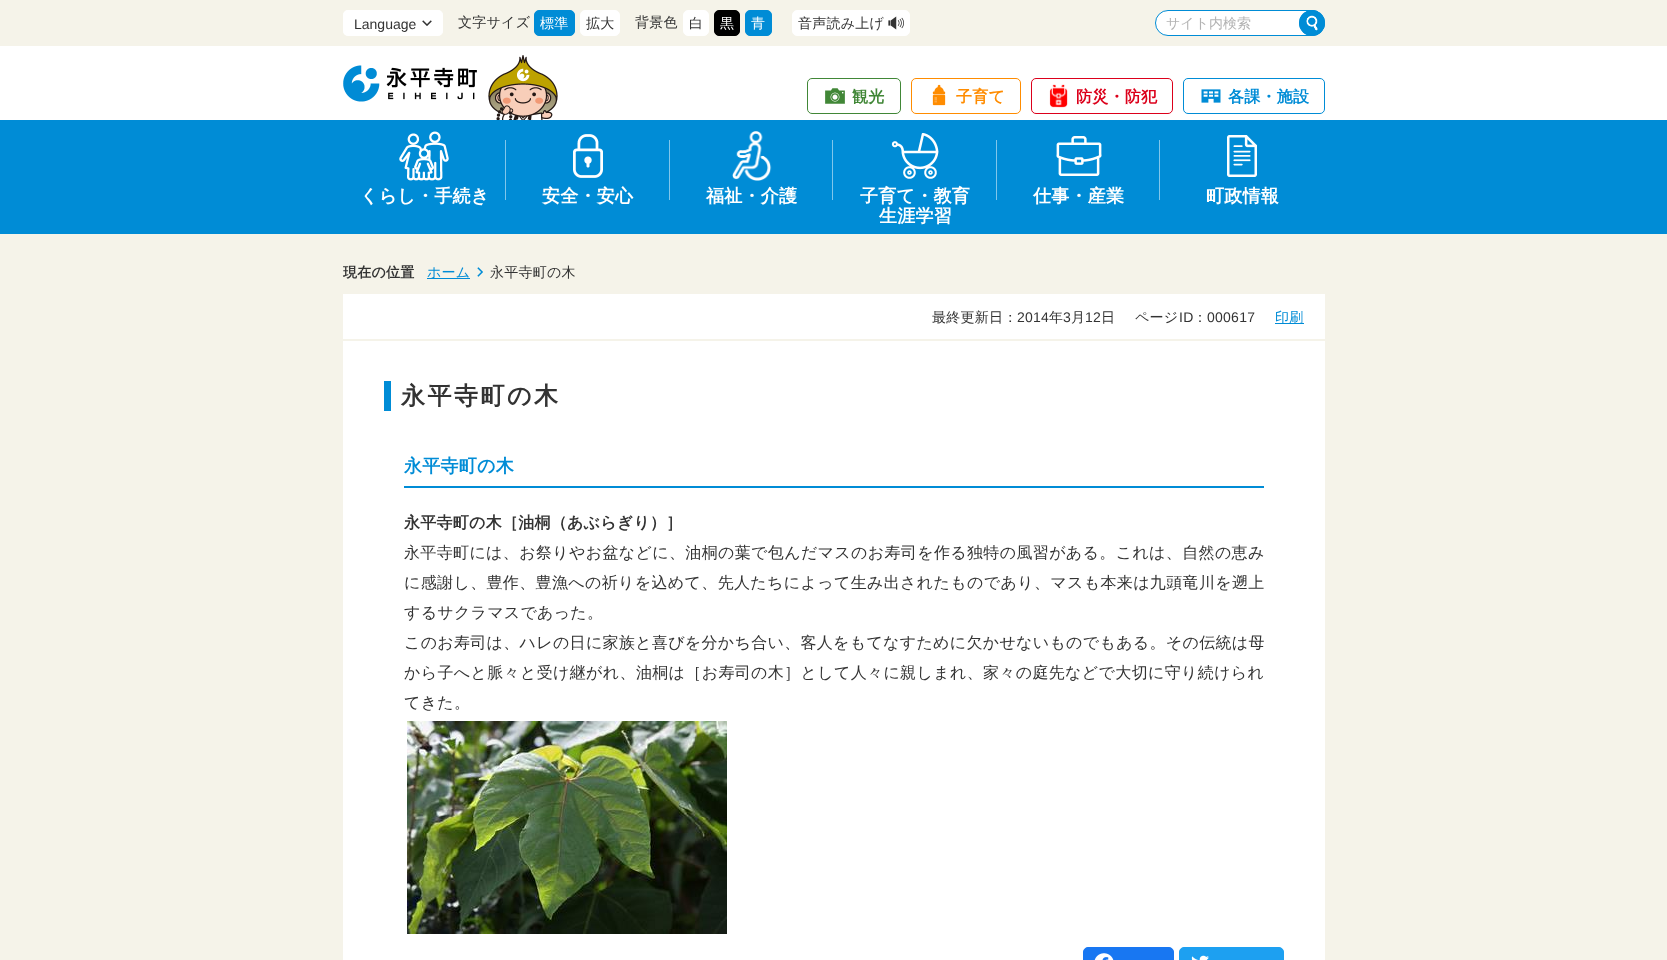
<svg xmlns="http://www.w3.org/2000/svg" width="1667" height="960">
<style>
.a{font:14px Liberation Sans;fill:#333}
.b{font:500 14px WenQuanYi Zen Hei;letter-spacing:0.25px;fill:#333}
.c{font:500 14px WenQuanYi Zen Hei;letter-spacing:0.25px;fill:#fff}
.d{font:bold 16px WenQuanYi Zen Hei;letter-spacing:0.25px;fill:#418737}
.e{font:bold 16px WenQuanYi Zen Hei;letter-spacing:0.25px;fill:#ff8c00}
.f{font:bold 16px WenQuanYi Zen Hei;letter-spacing:0.25px;fill:#dc001b}
.g{font:bold 16px WenQuanYi Zen Hei;letter-spacing:0.25px;fill:#008cd6}
.h{font:bold 18px WenQuanYi Zen Hei;letter-spacing:0.25px;fill:#fff}
.i{font:500 14px WenQuanYi Zen Hei;fill:#b3b3b3}
.j{font:bold 14px WenQuanYi Zen Hei;letter-spacing:0.25px;fill:#333}
.k{font:500 14px WenQuanYi Zen Hei;letter-spacing:0.25px;fill:#008cd6}
.l{font:14px Liberation Sans;letter-spacing:0.25px;fill:#333}
.m{font:bold 24px WenQuanYi Zen Hei;letter-spacing:2.5px;fill:#333}
.n{font:bold 18px WenQuanYi Zen Hei;letter-spacing:0.25px;fill:#008cd6}
.o{font:bold 16px WenQuanYi Zen Hei;letter-spacing:0.25px;fill:#333}
.p{font:500 16px WenQuanYi Zen Hei;letter-spacing:0.35px;fill:#333}
.q{font:500 16px WenQuanYi Zen Hei;letter-spacing:0.25px;fill:#333}
.r{font:500 16px WenQuanYi Zen Hei;letter-spacing:0.3px;fill:#333}
</style>
<rect width="100%" height="100%" fill="#fff"/>
<path fill="#f5f3e9" d="M0 0h1667v46H0z"/>
<rect fill="#fff" x="343" y="10" width="100" height="26" rx="5"/>
<image href="1.png" x="422" y="20" width="10" height="6"/>
<rect fill="none" stroke="#fff" x="343.5" y="10.5" width="99" height="25" rx="4.5"/>
<rect fill="#008cd6" stroke="#008cd6" x="534.5" y="10.5" width="40" height="25" rx="4.5"/>
<rect fill="#fff" stroke="#fff" x="580.5" y="10.5" width="39" height="25" rx="4.5"/>
<rect fill="#fff" stroke="#fff" x="683.5" y="10.5" width="25" height="25" rx="4.5"/>
<rect fill="#000" stroke="#000" x="714.5" y="10.5" width="25" height="25" rx="4.5"/>
<rect fill="#008cd6" stroke="#008cd6" x="745.5" y="10.5" width="26" height="25" rx="4.5"/>
<rect fill="#fff" stroke="#fff" x="792.5" y="10.5" width="117" height="25" rx="4.5"/>
<image href="2.png" x="888" y="16" width="16" height="14"/>
<rect fill="none" stroke="#418737" x="807.5" y="78.5" width="93" height="35" rx="4.5"/>
<image href="3.png" x="825" y="88" width="20" height="16"/>
<rect fill="none" stroke="#ff8c00" x="911.5" y="78.5" width="109" height="35" rx="4.5"/>
<image href="4.png" x="932" y="84" width="14" height="22"/>
<rect fill="none" stroke="#dc001b" x="1031.5" y="78.5" width="141" height="35" rx="4.5"/>
<image href="5.png" x="1049" y="84" width="19" height="24"/>
<rect fill="none" stroke="#008cd6" x="1183.5" y="78.5" width="141" height="35" rx="4.5"/>
<image href="6.png" x="1201" y="89" width="20" height="14"/>
<path fill="#008cd6" d="M0 120h1667v114H0z"/>
<image href="7.png" x="399" y="131" width="50" height="50"/>
<path fill="#80c6eb" d="M505 140h1v60H505z"/>
<image href="8.png" x="573" y="134" width="30" height="44"/>
<path fill="#80c6eb" d="M669 140h1v60H669z"/>
<image href="9.png" x="732" y="131" width="40" height="50"/>
<path fill="#80c6eb" d="M832 140h1v60H832z"/>
<image href="10.png" x="891" y="133" width="48" height="46"/>
<path fill="#80c6eb" d="M996 140h1v60H996z"/>
<image href="11.png" x="1056" y="136" width="46" height="40"/>
<path fill="#80c6eb" d="M1159 140h1v60H1159z"/>
<image href="12.png" x="1227" y="135" width="30" height="42"/>
<rect fill="#fff" stroke="#008cd6" x="1155.5" y="10.5" width="169" height="25" rx="12.5"/>
<circle fill="#008cd6" cx="1312" cy="23" r="13"/>
<image href="13.png" x="1306" y="15" width="12" height="16"/>
<circle fill="none" stroke="#008cd6" cx="1312" cy="23" r="12.5"/>
<image href="14.png" x="343" y="65" width="134" height="37"/>
<image href="15.png" x="488" y="55" width="70" height="65"/>
<path fill="#f5f3e9" d="M0 234h1667v726H0z"/>
<path fill="#008cd6" d="M427 278h43v1H427z"/>
<image href="16.png" x="477" y="267" width="6" height="10"/>
<path fill="#fff" d="M343 294h982v666H343z"/>
<path fill="#f5f3e9" d="M343 339h982v2H343z"/>
<path fill="#008cd6" d="M1275 323h29v1H1275z"/>
<path fill="#008cd6" d="M384 381h7v30H384z"/>
<path fill="#008cd6" d="M404 486h860v2H404z"/>
<image href="17.png" x="407" y="721" width="320" height="213"/>
<rect fill="#1877f2" stroke="#1877f2" x="1083.5" y="947.5" width="90" height="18" rx="4.5"/>
<image href="18.png" x="1094" y="953" width="20" height="7"/>
<rect fill="#1da0f1" stroke="#1da0f1" x="1179.5" y="947.5" width="104" height="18" rx="4.5"/>
<image href="19.png" x="1191" y="955" width="18" height="5"/>
<text class="a" x="354" y="29">Language</text>
<text class="b" x="458" y="27">文字サイズ</text>
<text class="c" x="540" y="28">標準</text>
<text class="b" x="586" y="28">拡大</text>
<text class="b" x="635" y="27">背景色</text>
<text class="b" x="689" y="28">白</text>
<text class="c" x="720" y="28">黒</text>
<text class="c" x="751" y="28">青</text>
<text class="b" x="798" y="28">音声読み上げ</text>
<text class="d" x="852" y="102">観光</text>
<text class="e" x="956" y="102">子育て</text>
<text class="f" x="1076" y="102">防災・防犯</text>
<text class="g" x="1228" y="102">各課・施設</text>
<text class="h" x="360" y="202">くらし・手続き</text>
<text class="h" x="542" y="202">安全・安心</text>
<text class="h" x="706" y="202">福祉・介護</text>
<text class="h" x="860" y="202">子育て・教育</text>
<text class="h" x="879" y="222">生涯学習</text>
<text class="h" x="1033" y="202">仕事・産業</text>
<text class="h" x="1206" y="202">町政情報</text>
<text class="i" x="1166" y="28">サイト内検索</text>
<text class="j" x="343" y="277">現在の位置</text>
<text class="k" x="427" y="277">ホーム</text>
<text class="b" x="490" y="277">永平寺町の木</text>
<text class="b" x="932" y="322">最終更新日：</text>
<text class="l" x="1017" y="322">2014</text>
<text class="b" x="1049" y="322">年</text>
<text class="l" x="1063" y="322">3</text>
<text class="b" x="1071" y="322">月</text>
<text class="l" x="1085" y="322">12</text>
<text class="b" x="1101" y="322">日</text>
<text class="b" x="1135" y="322">ページ</text>
<text class="l" x="1179" y="322">ID</text>
<text class="b" x="1193" y="322">：</text>
<text class="l" x="1207" y="322">000617</text>
<text class="k" x="1275" y="322">印刷</text>
<text class="m" x="401" y="404">永平寺町の木</text>
<text class="n" x="404" y="472">永平寺町の木</text>
<text class="o" x="404" y="528">永平寺町の木［油桐（あぶらぎり）］</text>
<text class="p" x="404" y="558">永平寺町には、お祭りやお盆などに、油桐の葉で包んだマスのお寿司を作る独特の風習がある。これは、自然の恵み</text>
<text class="p" x="404" y="588">に感謝し、豊作、豊漁への祈りを込めて、先人たちによって生み出されたものであり、マスも本来は九頭竜川を遡上</text>
<text class="q" x="404" y="618">するサクラマスであった。</text>
<text class="r" x="404" y="648">このお寿司は、ハレの日に家族と喜びを分かち合い、客人をもてなすために欠かせないものでもある。その伝統は母</text>
<text class="p" x="404" y="678">から子へと脈々と受け継がれ、油桐は［お寿司の木］として人々に親しまれ、家々の庭先などで大切に守り続けられ</text>
<text class="q" x="404" y="708">てきた。</text>
</svg>
